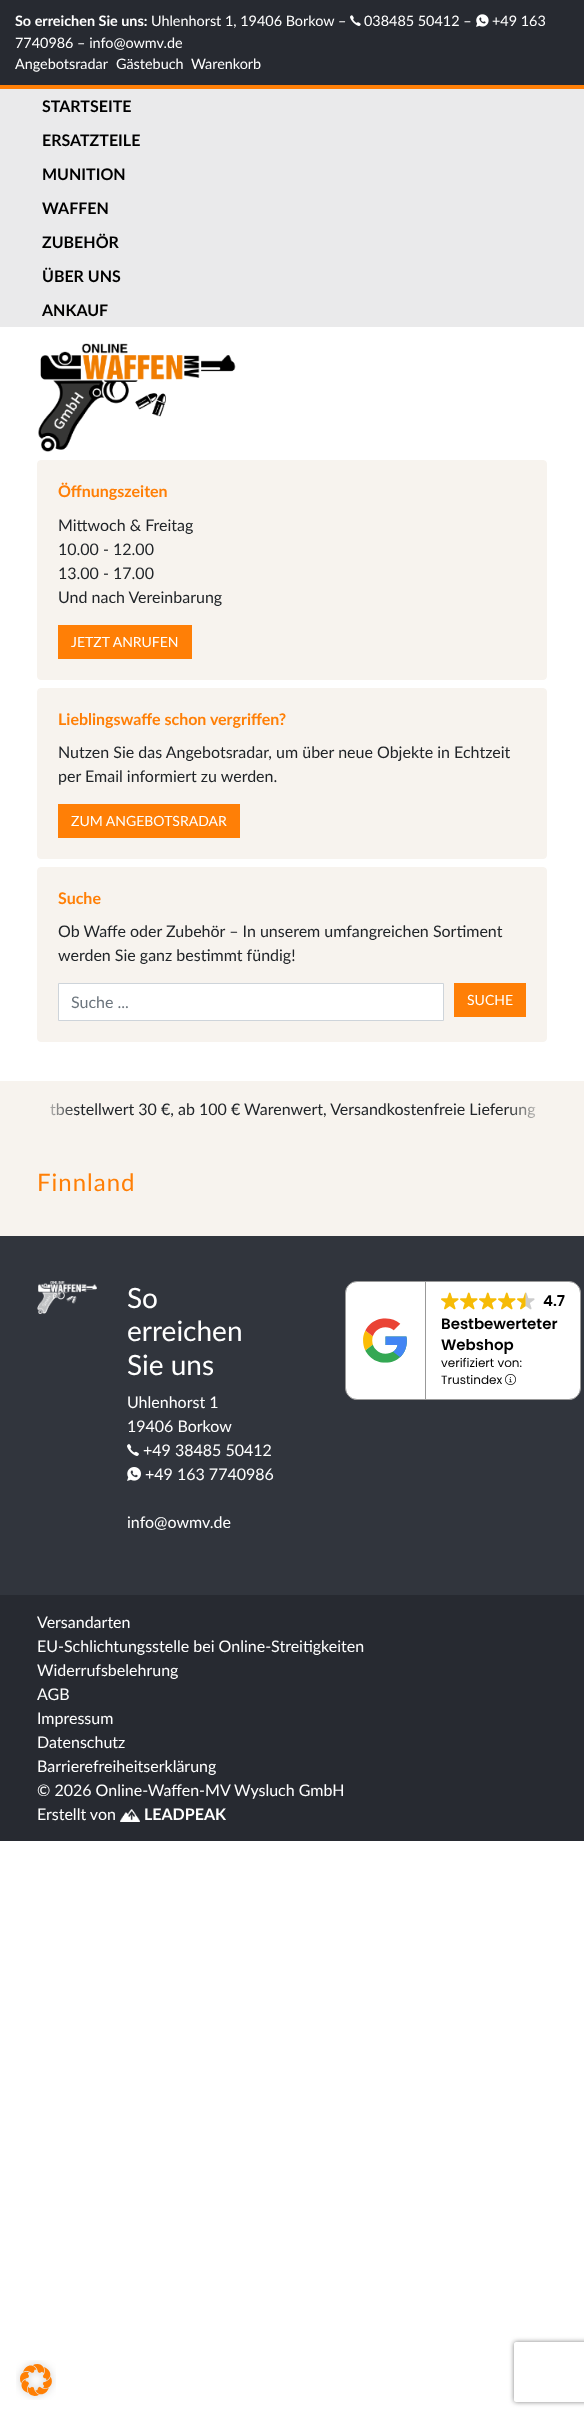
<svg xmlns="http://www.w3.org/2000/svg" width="584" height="2416">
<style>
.a{font:bold 14.4px Lato;fill:#fff}
.b{font:14.4px Lato;fill:#fff}
.c{font:bold 16px Lato;fill:#000}
.d{font:bold 16px Lato;fill:#ff7f06}
.e{font:16px Lato;fill:#212529}
.f{font:14px Lato;fill:#fff}
.g{font:16px Lato;fill:#6c757d}
.h{font:24px Lato;letter-spacing:1px;fill:#ff7f06}
.i{font:28px Lato;fill:#fff}
.j{font:16px Lato;fill:#fff}
.k{font:600 15px Poppins;fill:#000}
.l{font:12px Poppins;fill:#000}
.m{font:bold 16px Lato;fill:#fff}
</style>
<defs>
<clipPath id="clip1"><path d="M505 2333h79v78h-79zm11 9h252c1 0 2 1 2 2v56c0 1-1 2-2 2h-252c-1 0-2-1-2-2v-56c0-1 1-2 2-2z" clip-rule="evenodd"/></clipPath>
<linearGradient id="g1" gradientUnits="userSpaceOnUse" x1="77" y1="1109" x2="37" y2="1109"><stop offset="0" stop-color="#f7f3ee" stop-opacity="0"/><stop offset="1" stop-color="#f7f3ee"/></linearGradient>
<linearGradient id="g2" gradientUnits="userSpaceOnUse" x1="547" y1="1109" x2="507" y2="1109"><stop offset="0" stop-color="#f7f3ee"/><stop offset="1" stop-color="#f7f3ee" stop-opacity="0"/></linearGradient>
</defs>
<rect width="100%" height="100%" fill="#fff"/>
<path fill="#272a31" d="M0 0h584v85H0z"/>
<image href="1.png" x="350" y="15" width="11" height="11"/>
<image href="2.png" x="476" y="14" width="13" height="13"/>
<path fill="#eaeaeb" d="M0 89h584v238H0z"/>
<path fill="#ff7f06" d="M0 85h584v4H0z"/>
<image href="3.png" x="38" y="343" width="198" height="109"/>
<rect fill="#f7f3ee" stroke="#f7f3ee" x="37.5" y="460.5" width="509" height="219" rx="3.5"/>
<path fill="#ff7f06" d="M58 625h134v34H58z"/>
<rect fill="#f7f3ee" stroke="#f7f3ee" x="37.5" y="688.5" width="509" height="170" rx="3.5"/>
<path fill="#ff7f06" d="M58 804h182v34H58z"/>
<rect fill="#f7f3ee" stroke="#f7f3ee" x="37.5" y="867.5" width="509" height="174" rx="3.5"/>
<path fill="#fff" stroke="#ced4da" d="M58.5 983.5h385v37H58.5z"/>
<path fill="#ff7f06" d="M454 983h72v34H454z"/>
<path fill="#f7f3ee" d="M0 1081h584v155H0z"/>
<path fill="#31353d" d="M0 1236h584v359H0z"/>
<image href="4.png" x="37" y="1281" width="60" height="33"/>
<image href="5.png" x="127" y="1444" width="12" height="12"/>
<image href="6.png" x="127" y="1467" width="14" height="14"/>
<rect fill="#fff" stroke="#999" x="345.5" y="1281.5" width="235" height="118" rx="11.5"/>
<path fill="#999" d="M425 1282h1v117H425z"/>
<image href="7.png" x="363" y="1318" width="44" height="45"/>
<image href="8.png" x="441" y="1292" width="18" height="18"/>
<image href="8.png" x="460" y="1292" width="18" height="18"/>
<image href="8.png" x="479" y="1292" width="18" height="18"/>
<image href="8.png" x="498" y="1292" width="18" height="18"/>
<image href="9.png" x="517" y="1292" width="18" height="18"/>
<image href="10.png" x="505" y="1374" width="11" height="11"/>
<path fill="#272a31" d="M0 1595h584v246H0z"/>
<image href="11.png" x="120" y="1809" width="20" height="13"/>
<image href="12.png" x="16" y="2360" width="40" height="40"/>
<g clip-path="url(#clip1)">
<rect fill="#808080" filter="blur(2.5px)" x="514" y="2342" width="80" height="60" rx="2"/>
</g>
<text class="a" x="15" y="26">So erreichen Sie uns:</text>
<text class="b" x="151" y="26">Uhlenhorst 1, 19406 Borkow –</text>
<text class="b" x="364" y="26">038485 50412 –</text>
<text class="b" x="492" y="26">+49 163</text>
<text class="b" x="15" y="48">7740986 – info@owmv.de</text>
<text class="b" x="15" y="69">Angebotsradar</text>
<text class="b" x="116" y="69">Gästebuch</text>
<text class="b" x="191" y="69">Warenkorb</text>
<text class="c" x="42" y="112">STARTSEITE</text>
<text class="c" x="42" y="146">ERSATZTEILE</text>
<text class="c" x="42" y="180">MUNITION</text>
<text class="c" x="42" y="214">WAFFEN</text>
<text class="c" x="42" y="248">ZUBEHÖR</text>
<text class="c" x="42" y="282">ÜBER UNS</text>
<text class="c" x="42" y="316">ANKAUF</text>
<text class="d" x="58" y="497">Öffnungszeiten</text>
<text class="e" x="58" y="531">Mittwoch &amp; Freitag</text>
<text class="e" x="58" y="555">10.00 - 12.00</text>
<text class="e" x="58" y="579">13.00 - 17.00</text>
<text class="e" x="58" y="603">Und nach Vereinbarung</text>
<text class="f" x="71" y="647">JETZT ANRUFEN</text>
<text class="d" x="58" y="725">Lieblingswaffe schon vergriffen?</text>
<text class="e" x="58" y="758">Nutzen Sie das Angebotsradar, um über neue Objekte in Echtzeit</text>
<text class="e" x="58" y="782">per Email informiert zu werden.</text>
<text class="f" x="71" y="826">ZUM ANGEBOTSRADAR</text>
<text class="d" x="58" y="904">Suche</text>
<text class="e" x="58" y="937">Ob Waffe oder Zubehör – In unserem umfangreichen Sortiment</text>
<text class="e" x="58" y="961">werden Sie ganz bestimmt fündig!</text>
<text class="g" x="71" y="1008">Suche ...</text>
<text class="f" x="467" y="1005">SUCHE</text>
<text class="e" x="50" y="1115">tbestellwert 30 €, ab 100 € Warenwert, Versandkostenfreie Lieferung</text>
<path fill="url(#g1)" d="M50 1103h26v13H50z"/>
<path fill="url(#g2)" d="M508 1106h28v12H508z"/>
<text class="h" x="37" y="1191">Finnland</text>
<text class="i" x="127" y="1308">So</text>
<text class="i" x="127" y="1341">erreichen</text>
<text class="i" x="127" y="1375">Sie uns</text>
<text class="j" x="127" y="1408">Uhlenhorst 1</text>
<text class="j" x="127" y="1432">19406 Borkow</text>
<text class="j" x="143" y="1456">+49 38485 50412</text>
<text class="j" x="145" y="1480">+49 163 7740986</text>
<text class="j" x="127" y="1528">info@owmv.de</text>
<text class="k" x="543" y="1306">4.7</text>
<text class="k" x="441" y="1329">Bestbewerteter</text>
<text class="k" x="441" y="1350">Webshop</text>
<text class="l" x="441" y="1367">verifiziert von:</text>
<text class="l" x="441" y="1384">Trustindex</text>
<text class="j" x="37" y="1628">Versandarten</text>
<text class="j" x="37" y="1652">EU-Schlichtungsstelle bei Online-Streitigkeiten</text>
<text class="j" x="37" y="1676">Widerrufsbelehrung</text>
<text class="j" x="37" y="1700">AGB</text>
<text class="j" x="37" y="1724">Impressum</text>
<text class="j" x="37" y="1748">Datenschutz</text>
<text class="j" x="37" y="1772">Barrierefreiheitserklärung</text>
<text class="j" x="37" y="1796">© 2026 Online-Waffen-MV Wysluch GmbH</text>
<text class="j" x="37" y="1820">Erstellt von</text>
<text class="m" x="144" y="1820">LEADPEAK</text>
</svg>
